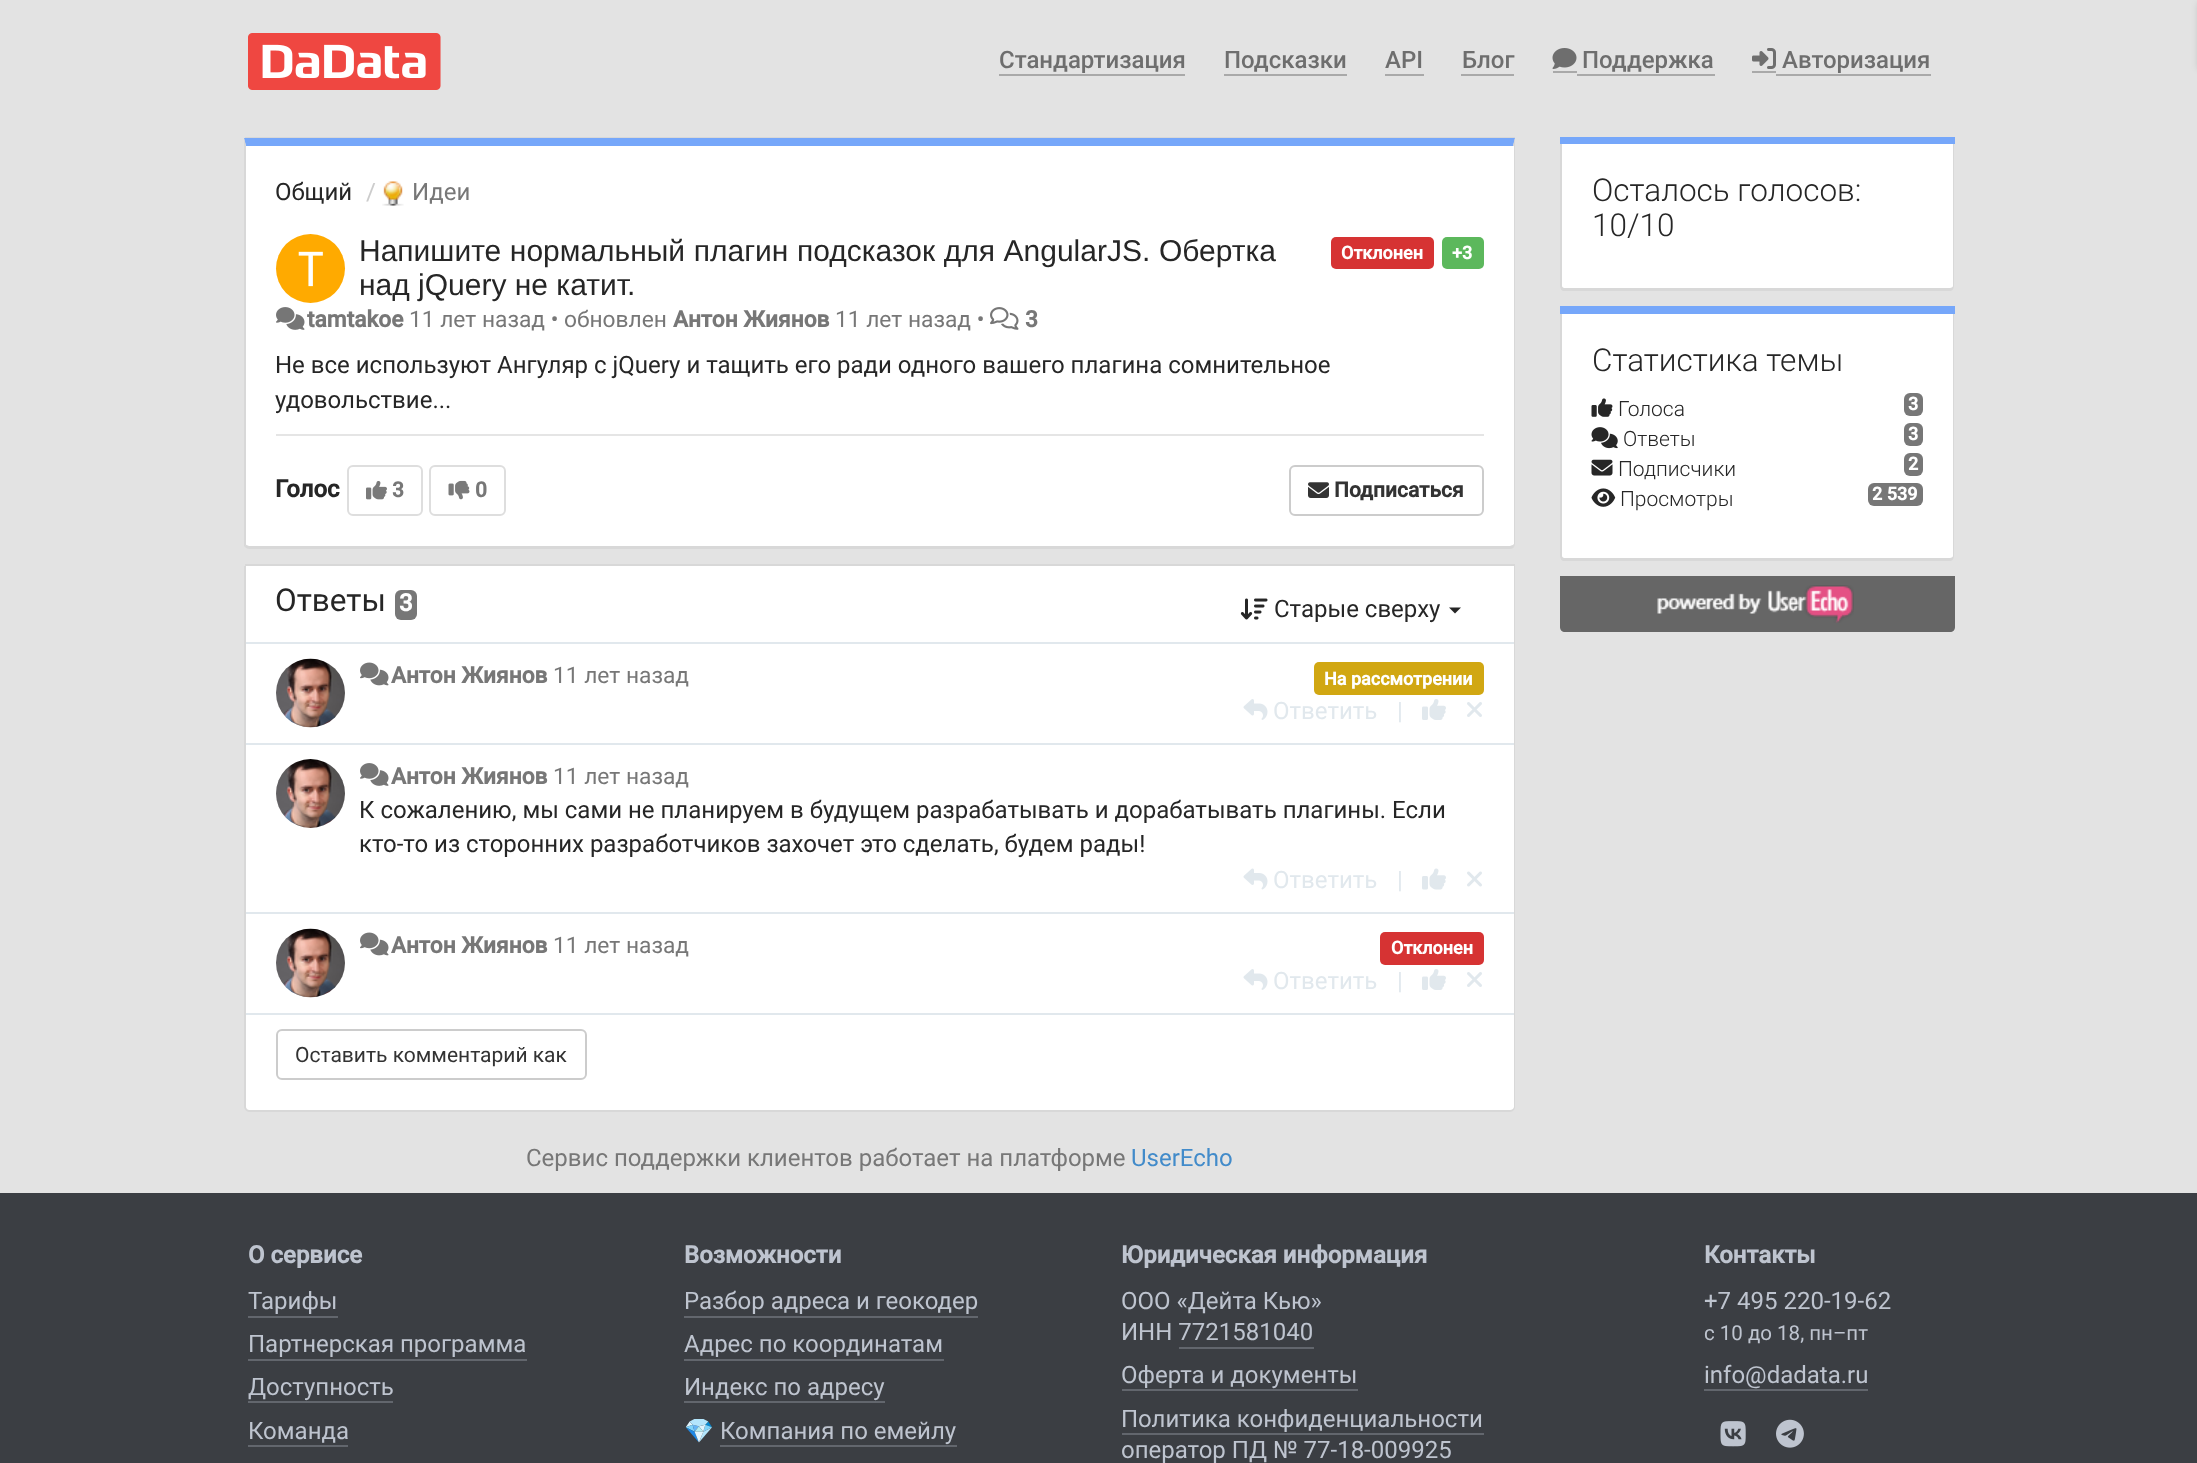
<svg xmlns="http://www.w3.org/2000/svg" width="2197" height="1463">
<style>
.a{font:500 24px Roboto;fill:#6e6e6e}
.b{font:24px Roboto;fill:#262626}
.c{font:24px Roboto;fill:#ccc}
.d{font:24px Roboto;fill:#777}
.e{font:30px Liberation Sans;fill:#262626}
.f{font:bold 18px Roboto;fill:#fff}
.g{font:bold 22.75px Roboto;fill:#777}
.h{font:22.75px Roboto;fill:#777}
.i{font:bold 24px Roboto;fill:#262626}
.j{font:bold 21px Roboto;fill:#777}
.k{font:bold 21px Roboto;fill:#333}
.l{font:31.5px Roboto;fill:#262626}
.m{font:bold 24px Roboto;fill:#fff}
.n{font:24px Roboto;fill:#e1e8ed}
.o{font:21px Roboto;fill:#333}
.p{font:24px Roboto;fill:#428bca}
.q{font:300 31.5px Roboto;fill:#262626}
.r{font:300 21px Roboto;fill:#262626}
.s{font:bold 24px Roboto;fill:#bec4cf}
.t{font:24px Roboto;fill:#bec4cf}
.u{font:24px Noto Color Emoji;fill:#bec4cf}
.v{font:20.5px Roboto;fill:#bec4cf}
</style>
<rect width="100%" height="100%" fill="#e3e3e3"/>
<image href="1.png" x="248" y="33" width="193" height="57"/>
<path fill="#a9a9a9" d="M999 74h186v2H999z"/>
<path fill="#a9a9a9" d="M1224 74h123v2H1224z"/>
<path fill="#a9a9a9" d="M1385 74h39v2H1385z"/>
<path fill="#a9a9a9" d="M1461 74h53v2H1461z"/>
<path fill="#a9a9a9" d="M1553 71h24v2H1553z"/>
<path fill="#a9a9a9" d="M1577 74h138v2H1577z"/>
<image href="2.png" x="1552" y="48" width="25" height="21"/>
<path fill="#a9a9a9" d="M1752 71h24v2H1752z"/>
<path fill="#a9a9a9" d="M1776 74h155v2H1776z"/>
<image href="3.png" x="1752" y="48" width="24" height="21"/>
<path fill="#00000026" filter="blur(3px)" d="M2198 3h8v66H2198z"/>
<path fill="#d8d8d8" d="M245 137h1270v2H245z"/>
<path fill="#fff" d="M246 146h1268v398c0 1-2 2-4 2h-1261c-2 0-3-1-3-2z"/>
<path fill="#76a7fa" d="M244 138l2 8h1267l2-8z"/>
<path fill="#d8d8d8" d="M1515 138l-2 8h1v398l-1 1l1 2l1-3z"/>
<path fill="#d8d8d8" d="M249 549h1261c2 0 3-1 4-2l-1-2l-3 1h-1261l-3-1l-1 2c1 1 3 2 4 2z"/>
<path fill="#d8d8d8" d="M246 146v398v1l-1 2l-1-1v-408z"/>
<image href="4.png" x="382" y="181" width="22" height="25"/>
<circle fill="#fa0" cx="310.5" cy="268.5" r="34.5"/>
<image href="5.png" x="298" y="251" width="25" height="36"/>
<rect fill="#d63333" x="1331" y="237" width="103" height="32" rx="5"/>
<rect fill="#5cb85c" x="1442" y="237" width="42" height="32" rx="5"/>
<image href="6.png" x="276" y="307" width="29" height="23"/>
<image href="7.png" x="990" y="307" width="29" height="23"/>
<path fill="#e5e5e5" d="M276 434h1208v2H276z"/>
<rect fill="none" stroke="#dedede" stroke-width="2" x="348" y="466" width="74" height="49" rx="5"/>
<image href="8.png" x="366" y="481" width="21" height="19"/>
<rect fill="none" stroke="#dedede" stroke-width="2" x="430" y="466" width="75" height="49" rx="5"/>
<image href="9.png" x="448" y="480" width="22" height="20"/>
<rect fill="none" stroke="#ccc" stroke-width="2" x="1290" y="466" width="193" height="49" rx="5"/>
<image href="10.png" x="1308" y="482" width="21" height="16"/>
<path fill="#d8d8d8" d="M245 564h1270v2H245z"/>
<path fill="#fff" d="M246 566h1268v541c0 1.5-1.5 3-3 3h-1262c-1.5 0-3-1.5-3-3z"/>
<path fill="#d8d8d8" fill-rule="evenodd" d="M244 566h1271v541c0 2-2 5-5 5h-1261c-2 0-5-3-5-5zm2 0h1268v541c0 2-2 3-4 3h-1261c-2 0-3-1-3-3z"/>
<rect fill="#777" x="395" y="590" width="22" height="30" rx="6"/>
<image href="11.png" x="1240" y="598" width="28" height="22"/>
<path fill="#262626" d="M1449 607.5h12l-6 6z"/>
<path fill="#e1e8ed" d="M246 642h1268v2H246z"/>
<path fill="#e1e8ed" d="M246 743h1268v2H246z"/>
<image href="12.png" x="276" y="658" width="69" height="70"/>
<image href="13.png" x="360" y="662" width="29" height="24"/>
<rect fill="#d1a712" x="1314" y="662" width="170" height="33" rx="5"/>
<image href="14.png" x="1243" y="699" width="25" height="21"/>
<image href="15.png" x="1422" y="699" width="24" height="21"/>
<image href="16.png" x="1467" y="702" width="15" height="15"/>
<path fill="#e1e8ed" d="M246 912h1268v2H246z"/>
<image href="17.png" x="276" y="759" width="69" height="69"/>
<image href="6.png" x="360" y="763" width="29" height="23"/>
<image href="18.png" x="1243" y="868" width="25" height="22"/>
<image href="19.png" x="1422" y="868" width="24" height="22"/>
<image href="20.png" x="1467" y="871" width="15" height="16"/>
<path fill="#e1e8ed" d="M246 1013h1268v2H246z"/>
<image href="12.png" x="276" y="928" width="69" height="70"/>
<image href="13.png" x="360" y="932" width="29" height="24"/>
<rect fill="#d63333" x="1380" y="932" width="104" height="33" rx="5"/>
<image href="14.png" x="1243" y="969" width="25" height="21"/>
<image href="15.png" x="1422" y="969" width="24" height="21"/>
<image href="16.png" x="1467" y="972" width="15" height="15"/>
<rect fill="none" stroke="#ccc" stroke-width="2" x="277" y="1030" width="309" height="49" rx="5"/>
<path fill="#76a7fa" d="M1560 137h395v7H1560z"/>
<path fill="#fff" d="M1562 144h391v142c0 1-1 2-3 2h-386c-1 0-2-1-2-2z"/>
<path fill="#d8d8d8" fill-rule="evenodd" d="M1560 144h394v142c0 3-2 5-4 5h-386c-2 0-4-2-4-5zm2 0h391v142c0 1-1 2-3 2h-386c-1 0-2-1-2-2z"/>
<path fill="#76a7fa" d="M1560 306h395v8H1560z"/>
<path fill="#fff" d="M1562 314h391v242c0 1-1 2-3 2h-386c-1 0-2-1-2-2z"/>
<path fill="#d8d8d8" fill-rule="evenodd" d="M1560 314h394v242c0 3-2 5-4 5h-386c-2 0-4-2-4-5zm2 0h391v242c0 1-1 2-3 2h-386c-1 0-2-1-2-2z"/>
<image href="21.png" x="1591" y="398" width="22" height="19"/>
<rect fill="#777" x="1904" y="393" width="19" height="23" rx="6"/>
<image href="22.png" x="1591" y="427" width="27" height="22"/>
<rect fill="#777" x="1904" y="423" width="19" height="23" rx="6"/>
<image href="23.png" x="1591" y="459" width="22" height="17"/>
<rect fill="#777" x="1904" y="453" width="19" height="23" rx="6"/>
<image href="24.png" x="1591" y="488" width="25" height="19"/>
<rect fill="#777" x="1868" y="483" width="55" height="23" rx="6"/>
<path fill="#666" d="M1560 576h395v51c0 3-2 5-5 5h-385c-3 0-5-2-5-5z"/>
<image href="25.png" x="1657" y="585" width="197" height="38"/>
<path fill="#3b3e43" d="M0 1193h2197v270H0z"/>
<path fill="#62666d" d="M248 1316h90v2H248z"/>
<path fill="#62666d" d="M248 1359h279v2H248z"/>
<path fill="#62666d" d="M248 1401h145v2H248z"/>
<path fill="#62666d" d="M248 1445h100v2H248z"/>
<path fill="#62666d" d="M684 1316h294v2H684z"/>
<path fill="#62666d" d="M684 1359h260v2H684z"/>
<path fill="#62666d" d="M684 1401h201v2H684z"/>
<path fill="#62666d" d="M720 1445h237v2H720z"/>
<path fill="#62666d" d="M1179 1347h135v2H1179z"/>
<path fill="#62666d" d="M1122 1389h236v2H1122z"/>
<path fill="#62666d" d="M1122 1433h362v2H1122z"/>
<path fill="#62666d" d="M1704 1389h164v2H1704z"/>
<image href="26.png" x="1720" y="1421" width="26" height="26"/>
<image href="27.png" x="1776" y="1419" width="28" height="29"/>
<text class="a" x="999" y="68">Стандартизация</text>
<text class="a" x="1224" y="68">Подсказки</text>
<text class="a" x="1385" y="68">API</text>
<text class="a" x="1462" y="68">Блог</text>
<text class="a" x="1582" y="68">Поддержка</text>
<text class="a" x="1782" y="68">Авторизация</text>
<text class="b" x="275" y="200">Общий</text>
<text class="c" x="366" y="200">/</text>
<text class="d" x="412" y="200">Идеи</text>
<text class="e" x="359" y="261" word-spacing="0.25">Напишите нормальный плагин подсказок для AngularJS. Обертка</text>
<text class="e" x="359" y="295">над jQuery не катит.</text>
<text class="f" x="1341" y="259">Отклонен</text>
<text class="f" x="1452" y="259">+3</text>
<text class="g" x="307" y="327">tamtakoe</text>
<text class="h" x="409" y="327">11 лет назад • обновлен</text>
<text class="g" x="673" y="327">Антон Жиянов</text>
<text class="h" x="835" y="327">11 лет назад •</text>
<text class="g" x="1025" y="327">3</text>
<text class="b" x="275" y="373">Не все используют Ангуляр с jQuery и тащить его ради одного вашего плагина сомнительное</text>
<text class="b" x="275" y="408">удовольствие...</text>
<text class="i" x="275" y="497">Голос</text>
<text class="j" x="392" y="497">3</text>
<text class="j" x="475" y="497">0</text>
<text class="k" x="1334" y="497">Подписаться</text>
<text class="l" x="275" y="611">Ответы</text>
<text class="m" x="399" y="611">3</text>
<text class="b" x="1274" y="617">Старые сверху</text>
<text class="g" x="391" y="683">Антон Жиянов</text>
<text class="h" x="553" y="683">11 лет назад</text>
<text class="f" x="1324" y="685">На рассмотрении</text>
<text class="n" x="1273" y="719">Ответить</text>
<text class="n" x="1397" y="719">|</text>
<text class="g" x="391" y="784">Антон Жиянов</text>
<text class="h" x="553" y="784">11 лет назад</text>
<text class="b" x="359" y="818">К сожалению, мы сами не планируем в будущем разрабатывать и дорабатывать плагины. Если</text>
<text class="b" x="359" y="852">кто-то из сторонних разработчиков захочет это сделать, будем рады!</text>
<text class="n" x="1273" y="888">Ответить</text>
<text class="n" x="1397" y="888">|</text>
<text class="g" x="391" y="953">Антон Жиянов</text>
<text class="h" x="553" y="953">11 лет назад</text>
<text class="f" x="1391" y="954">Отклонен</text>
<text class="n" x="1273" y="989">Ответить</text>
<text class="n" x="1397" y="989">|</text>
<text class="o" x="295" y="1062">Оставить комментарий как</text>
<text class="d" x="526" y="1166">Сервис поддержки клиентов работает на платформе</text>
<text class="p" x="1131" y="1166">UserEcho</text>
<text class="q" x="1592" y="201">Осталось голосов:</text>
<text class="q" x="1592" y="236">10/10</text>
<text class="q" x="1592" y="371">Статистика темы</text>
<text class="r" x="1618" y="416">Голоса</text>
<text class="f" x="1908" y="410">3</text>
<text class="r" x="1623" y="446">Ответы</text>
<text class="f" x="1908" y="440">3</text>
<text class="r" x="1618" y="476">Подписчики</text>
<text class="f" x="1908" y="470">2</text>
<text class="r" x="1620" y="506">Просмотры</text>
<text class="f" x="1872" y="500">2 539</text>
<text class="s" x="248" y="1263">О сервисе</text>
<text class="t" x="248" y="1309">Тарифы</text>
<text class="t" x="248" y="1352">Партнерская программа</text>
<text class="t" x="248" y="1395">Доступность</text>
<text class="t" x="248" y="1439">Команда</text>
<text class="s" x="684" y="1263">Возможности</text>
<text class="t" x="684" y="1309">Разбор адреса и геокодер</text>
<text class="t" x="684" y="1352">Адрес по координатам</text>
<text class="t" x="684" y="1395">Индекс по адресу</text>
<text class="u" x="684" y="1439">💎</text>
<text class="t" x="720" y="1439">Компания по емейлу</text>
<text class="s" x="1121" y="1263">Юридическая информация</text>
<text class="t" x="1121" y="1309">ООО «Дейта Кью»</text>
<text class="t" x="1121" y="1340">ИНН 7721581040</text>
<text class="t" x="1121" y="1383">Оферта и документы</text>
<text class="t" x="1121" y="1427">Политика конфиденциальности</text>
<text class="t" x="1121" y="1458">оператор ПД № 77-18-009925</text>
<text class="s" x="1704" y="1263">Контакты</text>
<text class="t" x="1704" y="1309">+7 495 220-19-62</text>
<text class="v" x="1704" y="1340">с 10 до 18, пн–пт</text>
<text class="t" x="1704" y="1383">info@dadata.ru</text>
</svg>
